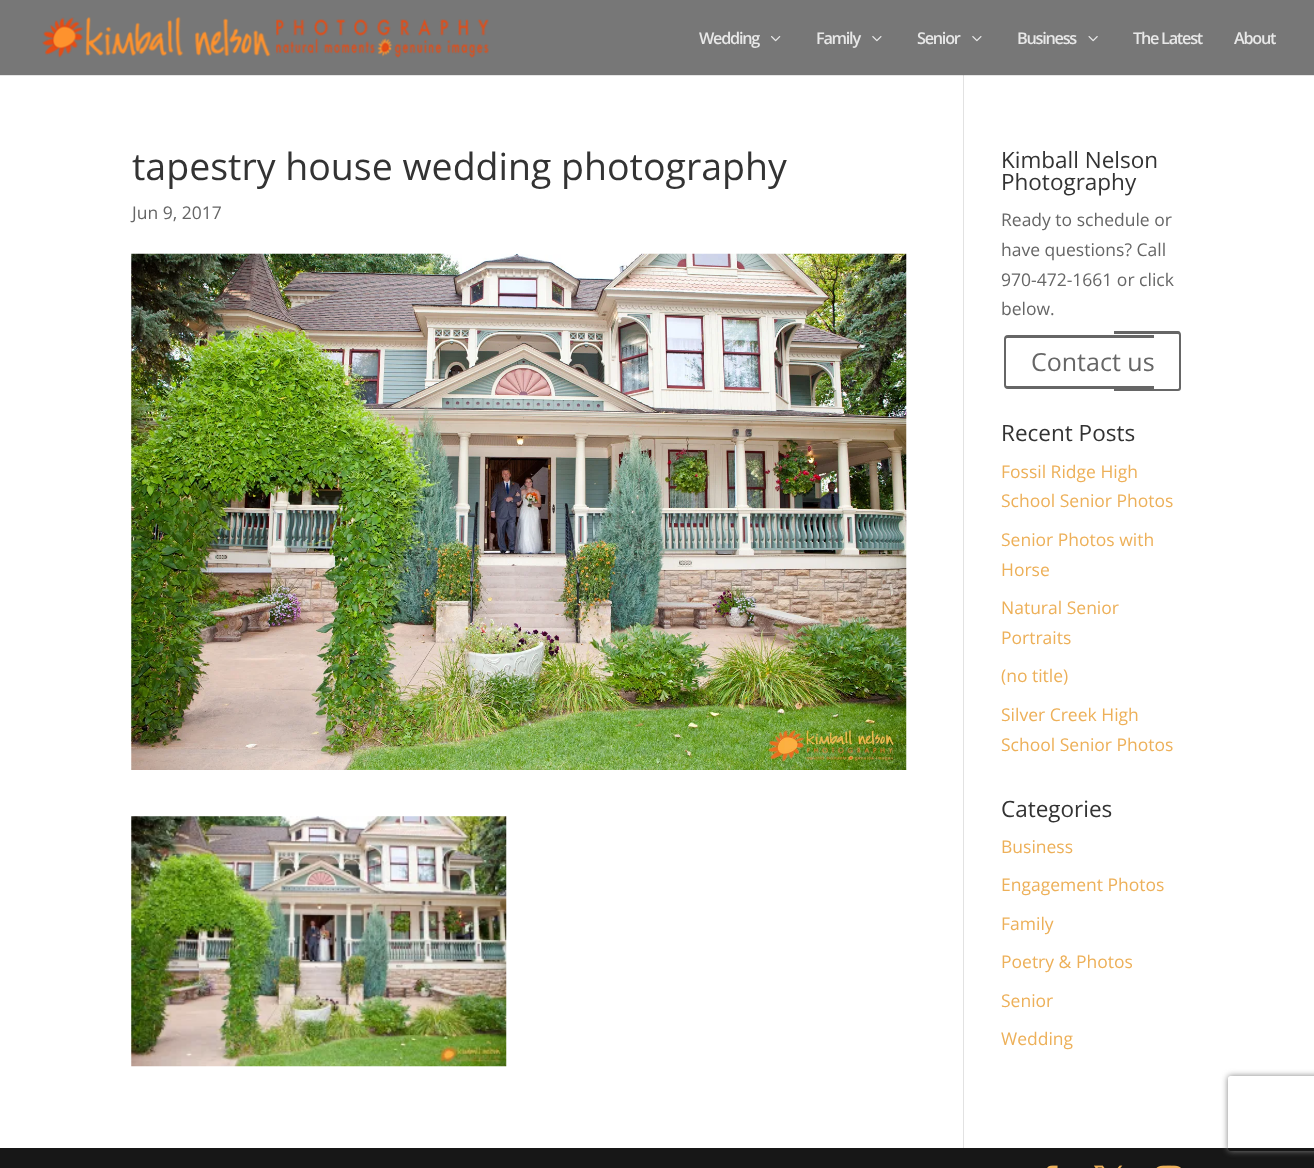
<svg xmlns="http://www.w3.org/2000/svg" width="1314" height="1168">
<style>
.a{font:600 16.25px Open Sans;letter-spacing:-1.25px;fill:#e8e8e8}
.b{font:37.5px Open Sans;fill:#333}
.c{font:17.5px Open Sans;fill:#666}
.d{font:22.5px Open Sans;fill:#333}
.e{font:25px Open Sans;fill:#666}
.f{font:17.5px Open Sans;fill:#edb059}
</style>
<defs>
<clipPath id="clip1"><path d="M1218 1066h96v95h-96zm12.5 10h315c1.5 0 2.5 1 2.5 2.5v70c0 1.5-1 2.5-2.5 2.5h-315c-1.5 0-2.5-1-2.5-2.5v-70c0-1.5 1-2.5 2.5-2.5z" clip-rule="evenodd"/></clipPath>
</defs>
<rect width="100%" height="100%" fill="#fff"/>
<path fill="#777" d="M0 0h1314v75H0z"/>
<image href="1.png" x="42" y="17" width="447" height="41"/>
<image href="2.png" x="771" y="36" width="10" height="6"/>
<image href="3.png" x="872" y="36" width="10" height="6"/>
<image href="3.png" x="972" y="36" width="10" height="6"/>
<image href="4.png" x="1088" y="36" width="10" height="6"/>
<path fill="#e6e6e6" d="M0 75h1314v1H0z"/>
<path fill="#e2e2e2" d="M963 75h1v1073H963z"/>
<path fill="#cbcbcb" d="M963 75h1v1H963z"/>
<image href="5.png" x="131" y="253" width="776" height="517"/>
<image href="6.png" x="131" y="816" width="376" height="251"/>
<path fill="#666" fill-rule="evenodd" d="M1008 335h146v54h-146c-3 0-4-2-4-4v-46c0-2 1-4 4-4zm0 3h146v48h-146c-1 0-2 0-2-1v-46c0-1 1-1 2-1z"/>
<path fill="#666" fill-rule="evenodd" d="M1114 331h64c2 0 3 2 3 4v53c0 2-1 3-3 3h-64zm0 3h64c0 0 1 0 1 1v53c0 0-1 1-1 1h-64z"/>
<path fill="#171717" d="M0 1148h1314v20H0z"/>
<image href="7.png" x="1047" y="1165" width="11" height="3"/>
<image href="8.png" x="1094" y="1165" width="29" height="3"/>
<image href="9.png" x="1156" y="1165" width="25" height="3"/>
<g clip-path="url(#clip1)">
<rect fill="#808080" filter="blur(3px)" x="1228" y="1076" width="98" height="75" rx="2.5"/>
</g>
<text class="a" x="699" y="44">Wedding</text>
<text class="a" x="816" y="44">Family</text>
<text class="a" x="917" y="44">Senior</text>
<text class="a" x="1017" y="44">Business</text>
<text class="a" x="1133" y="44">The Latest</text>
<text class="a" x="1234" y="44">About</text>
<text class="b" x="132" y="180">tapestry house wedding photography</text>
<text class="c" x="132" y="219">Jun 9, 2017</text>
<text class="d" x="1001" y="168">Kimball Nelson</text>
<text class="d" x="1001" y="190">Photography</text>
<text class="c" x="1001" y="226">Ready to schedule or</text>
<text class="c" x="1001" y="256">have questions? Call</text>
<text class="c" x="1001" y="286">970-472-1661 or click</text>
<text class="c" x="1001" y="315">below.</text>
<text class="e" x="1031" y="371">Contact us</text>
<text class="d" x="1001" y="441">Recent Posts</text>
<text class="f" x="1001" y="478">Fossil Ridge High</text>
<text class="f" x="1001" y="507">School Senior Photos</text>
<text class="f" x="1001" y="546">Senior Photos with</text>
<text class="f" x="1001" y="576">Horse</text>
<text class="f" x="1001" y="614">Natural Senior</text>
<text class="f" x="1001" y="644">Portraits</text>
<text class="f" x="1001" y="682">(no title)</text>
<text class="f" x="1001" y="721">Silver Creek High</text>
<text class="f" x="1001" y="751">School Senior Photos</text>
<text class="d" x="1001" y="817">Categories</text>
<text class="f" x="1001" y="853">Business</text>
<text class="f" x="1001" y="891">Engagement Photos</text>
<text class="f" x="1001" y="930">Family</text>
<text class="f" x="1001" y="968">Poetry &amp; Photos</text>
<text class="f" x="1001" y="1007">Senior</text>
<text class="f" x="1001" y="1045">Wedding</text>
</svg>
